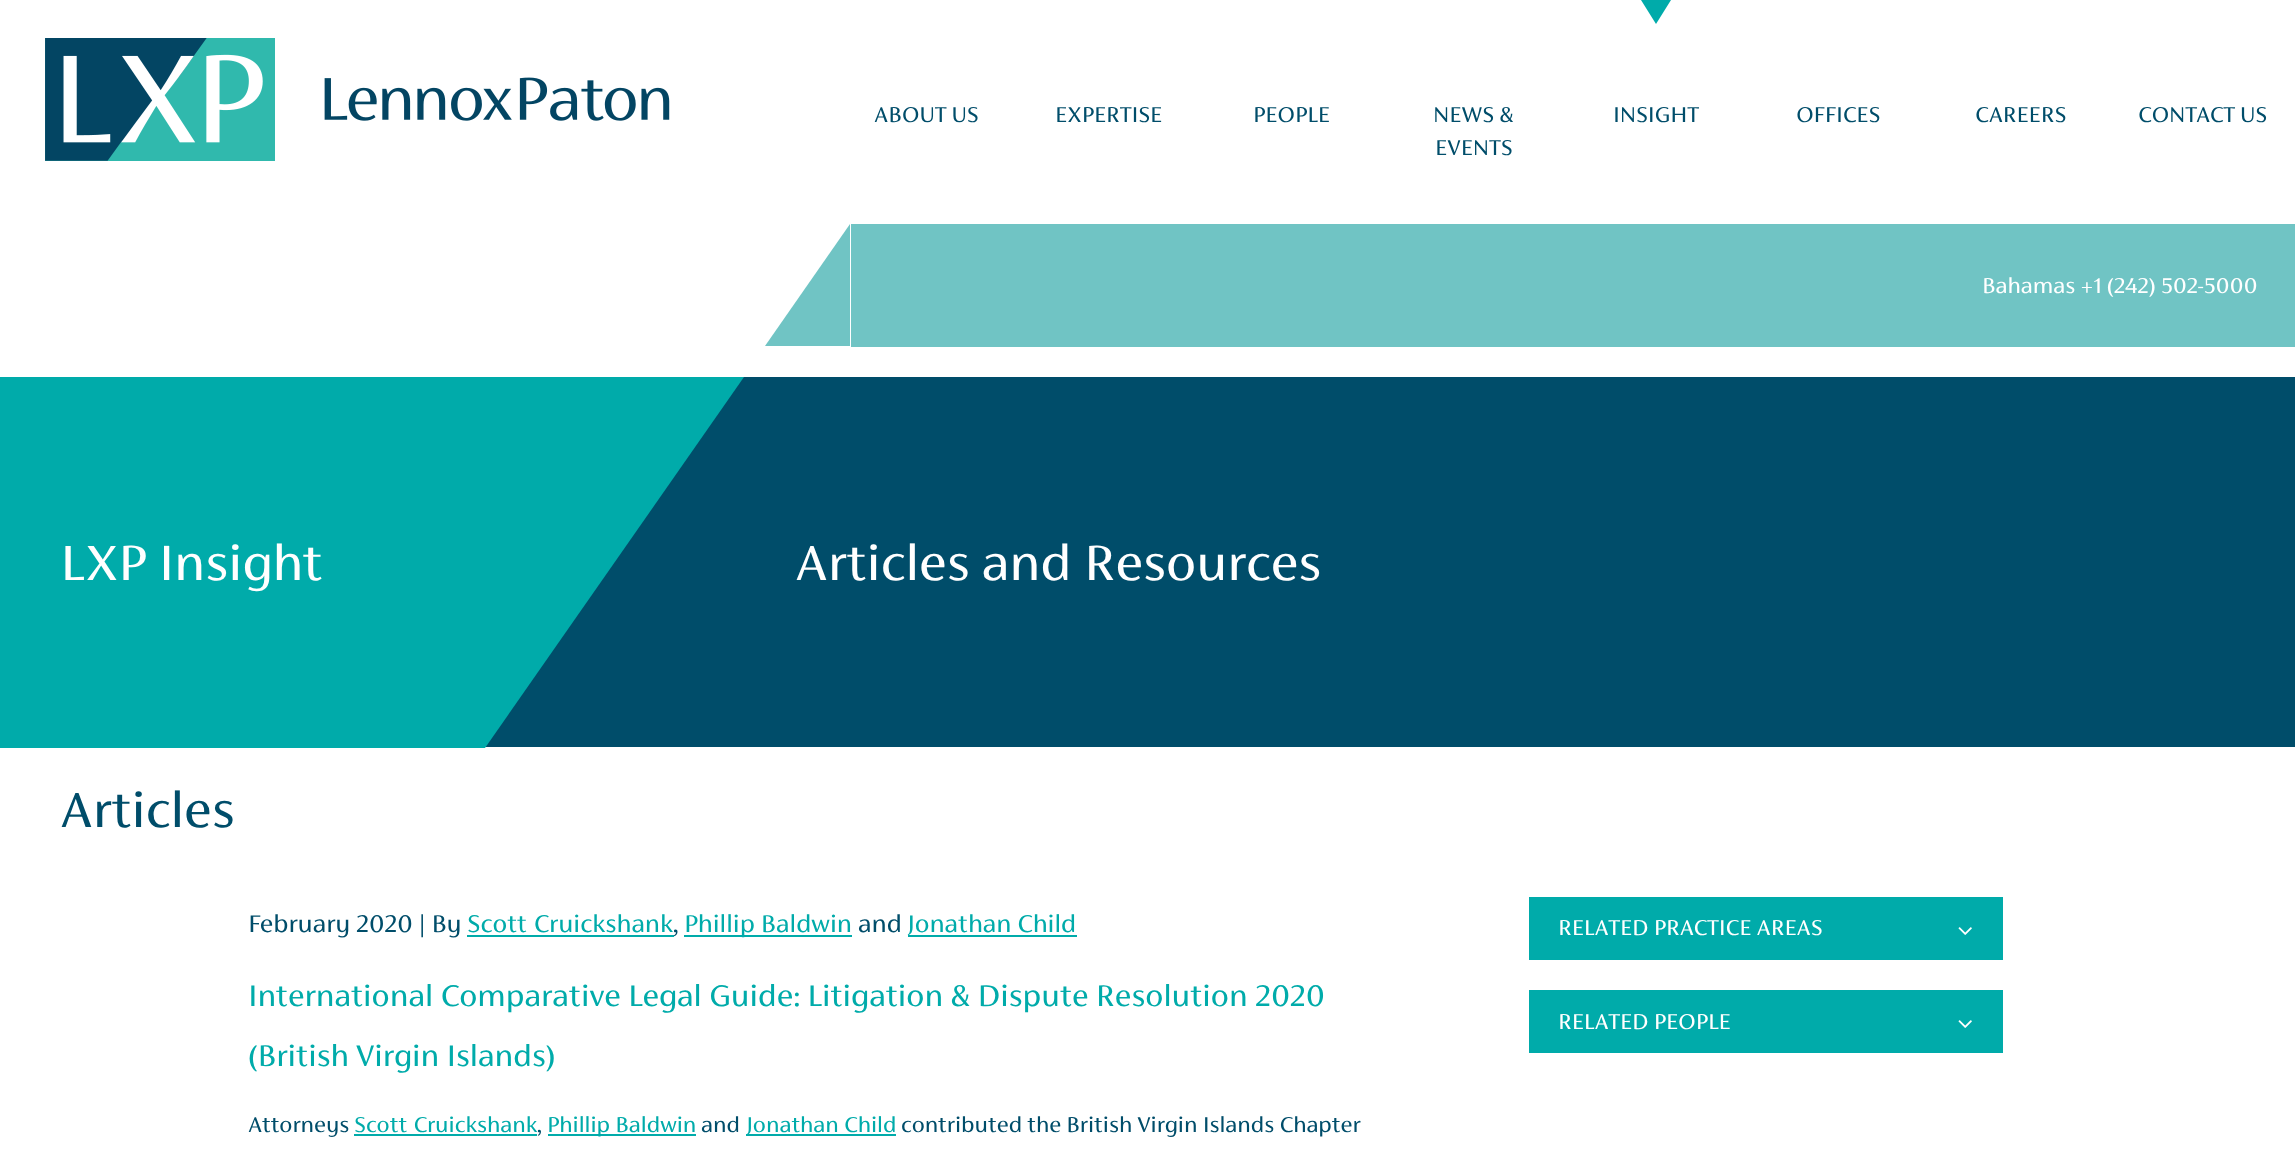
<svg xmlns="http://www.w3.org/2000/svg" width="2295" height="1152">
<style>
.a{font:24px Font;fill:#004d6a}
.b{font:24px Font;fill:#fff}
.c{font:55.4px Font;fill:#fff}
.d{font:55.4px Font;fill:#004d6a}
.e{font:27px Font;fill:#004d6a}
.f{font:27px Font;fill:#00abaa}
.g{font:33.25px Font;fill:#00abaa}
.h{font:24px Font;fill:#00abaa}
</style>
<rect width="100%" height="100%" fill="#fff"/>
<image href="1.png" x="45" y="38" width="625" height="123"/>
<path fill="#00abaa" d="M1641 0h30l-15 24z"/>
<path fill="#70c4c4" d="M851 224h1444v123H851z"/>
<path fill="#70c4c4" d="M850 346h-85l85-122z"/>
<path fill="#004d6a" d="M485 377h1810v370H485z"/>
<path fill="#00abaa" d="M-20 377h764l-259 371h-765z"/>
<path fill="#00abaa" d="M467 935h207v2H467z"/>
<path fill="#00abaa" d="M684 935h168v2H684z"/>
<path fill="#00abaa" d="M908 935h169v2H908z"/>
<path fill="#00abaa" d="M354 1134h183v2H354z"/>
<path fill="#00abaa" d="M548 1134h148v2H548z"/>
<path fill="#00abaa" d="M746 1134h150v2H746z"/>
<path fill="#00abaa" d="M1529 897h474v63H1529z"/>
<image href="2.png" x="1958" y="927" width="14" height="8"/>
<path fill="#00abaa" d="M1529 990h474v63H1529z"/>
<image href="2.png" x="1958" y="1020" width="14" height="8"/>
<text class="a" x="874" y="122">ABOUT US</text>
<text class="a" x="1055" y="122">EXPERTISE</text>
<text class="a" x="1253" y="122">PEOPLE</text>
<text class="a" x="1433" y="122">NEWS &amp;</text>
<text class="a" x="1435" y="155">EVENTS</text>
<text class="a" x="1613" y="122">INSIGHT</text>
<text class="a" x="1796" y="122">OFFICES</text>
<text class="a" x="1975" y="122">CAREERS</text>
<text class="a" x="2138" y="122">CONTACT US</text>
<text class="b" x="1982" y="293">Bahamas +1 (242) 502-5000</text>
<text class="c" x="60" y="580">LXP Insight</text>
<text class="c" x="795" y="580">Articles and Resources</text>
<text class="d" x="60" y="827">Articles</text>
<text class="e" x="248" y="932">February 2020 | By</text>
<text class="f" x="467" y="932" word-spacing="1">Scott Cruickshank</text>
<text class="e" x="673" y="932">,</text>
<text class="f" x="684" y="932">Phillip Baldwin</text>
<text class="e" x="858" y="932">and</text>
<text class="f" x="907" y="932">Jonathan Child</text>
<text class="g" x="248" y="1006">International Comparative Legal Guide: Litigation &amp; Dispute Resolution 2020</text>
<text class="g" x="248" y="1066">(British Virgin Islands)</text>
<text class="a" x="248" y="1132">Attorneys</text>
<text class="h" x="354" y="1132" word-spacing="1">Scott Cruickshank</text>
<text class="a" x="537" y="1132">,</text>
<text class="h" x="547" y="1132">Phillip Baldwin</text>
<text class="a" x="701" y="1132">and</text>
<text class="h" x="746" y="1132">Jonathan Child</text>
<text class="a" x="901" y="1132">contributed the British Virgin Islands Chapter</text>
<text class="b" x="1558" y="935">RELATED PRACTICE AREAS</text>
<text class="b" x="1558" y="1029">RELATED PEOPLE</text>
</svg>
